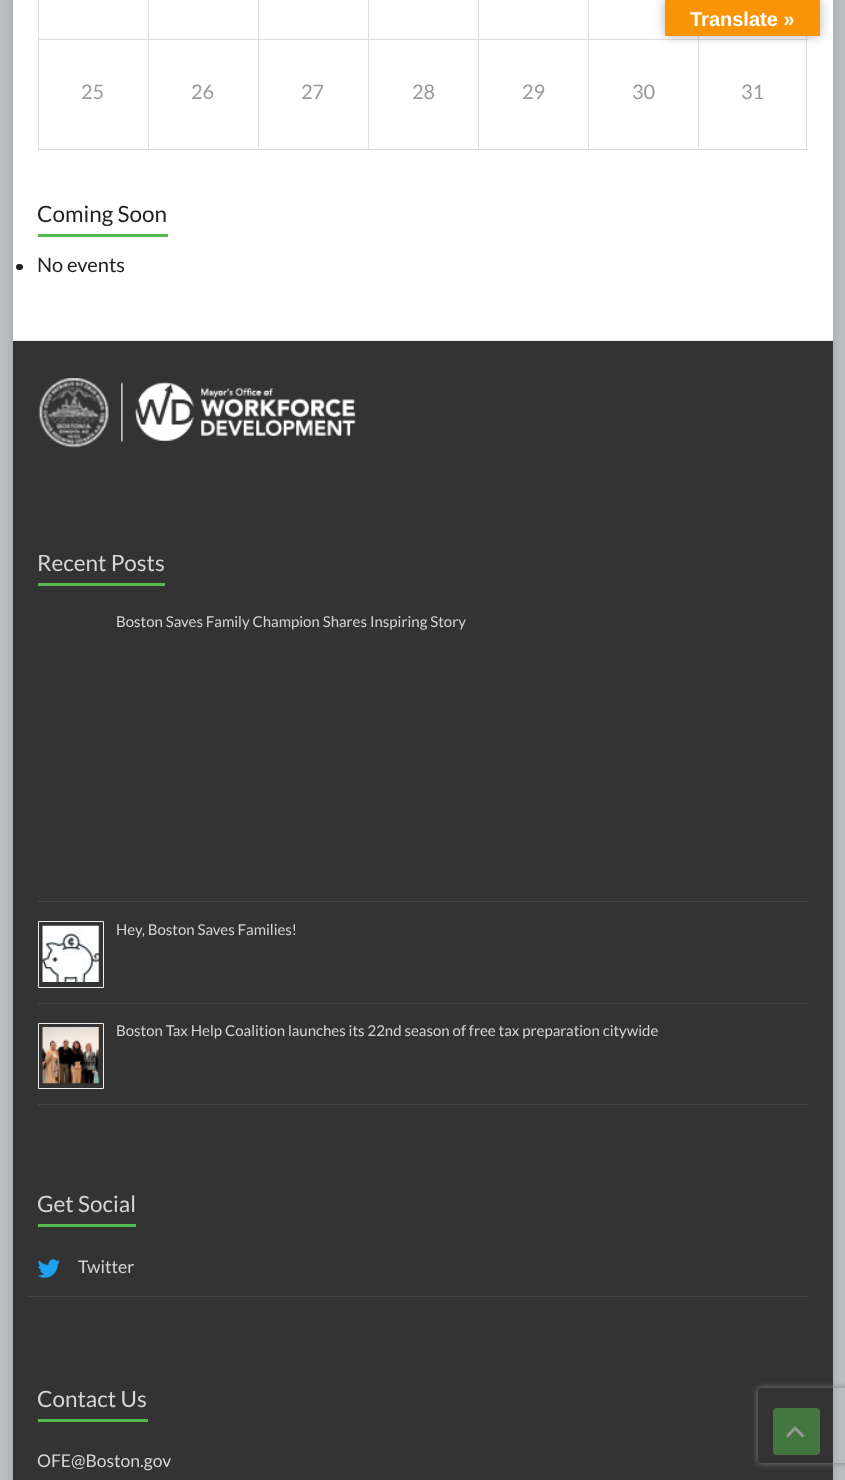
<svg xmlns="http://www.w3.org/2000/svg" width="845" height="1480">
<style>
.a{font:bold 20px Liberation Sans;fill:#fff}
.b{font:20px Lato;fill:#999}
.c{font:22.5px Lato;fill:#222}
.d{font:20px Lato;fill:#222}
.e{font:22.5px Lato;fill:#d5d5d5}
.f{font:15px Lato;fill:#d5d5d5}
.g{font:17.5px Lato;fill:#d5d5d5}
</style>
<defs>
<clipPath id="clip1"><path d="M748 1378h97v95h-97zm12.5 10h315c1.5 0 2.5 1 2.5 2.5v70c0 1.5-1 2.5-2.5 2.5h-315c-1.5 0-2.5-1-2.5-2.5v-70c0-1.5 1-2.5 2.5-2.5z" clip-rule="evenodd"/></clipPath>
</defs>
<rect width="100%" height="100%" fill="#bbbdbf"/>
<path fill="#6464644d" filter="blur(4px)" d="M13 -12h820v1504H13z"/>
<path fill="#fff" d="M13 0h820v340H13z"/>
<path fill="#dedede" d="M806 36h1v3H806z"/>
<path fill="#dedede" d="M698 36h1v3H698z"/>
<path fill="#dedede" d="M38 39h770v1H38z"/>
<path fill="#dedede" d="M806 39h1v110H806z"/>
<path fill="#dedede" d="M698 39h1v110H698z"/>
<path fill="#0000004d" filter="blur(5.5px)" d="M665 0h155v36H665z"/>
<path fill="#f89406" d="M665 0h155v36H665z"/>
<path fill="#dedede" d="M38 149h770v1H38z"/>
<path fill="#dedede" d="M38 0h1v39H38z"/>
<path fill="#dedede" d="M148 0h1v39H148z"/>
<path fill="#dedede" d="M258 0h1v39H258z"/>
<path fill="#dedede" d="M368 0h1v39H368z"/>
<path fill="#dedede" d="M478 0h1v39H478z"/>
<path fill="#dedede" d="M588 0h1v39H588z"/>
<path fill="#dedede" d="M38 39h1v110H38z"/>
<path fill="#dedede" d="M148 39h1v110H148z"/>
<path fill="#dedede" d="M258 39h1v110H258z"/>
<path fill="#dedede" d="M368 39h1v110H368z"/>
<path fill="#dedede" d="M478 39h1v110H478z"/>
<path fill="#dedede" d="M588 39h1v110H588z"/>
<path fill="#54ba4c" d="M38 234h130v3H38z"/>
<rect fill="#212121" x="16" y="264" width="7" height="6" rx="3"/>
<path fill="#333" d="M13 341h820v1139H13z"/>
<path fill="#eaeaea" d="M13 340h820v1H13z"/>
<image href="1.png" x="38" y="378" width="318" height="70"/>
<path fill="#54ba4c" d="M38 583h127v3H38z"/>
<path fill="#444" d="M38 901h770v1H38z"/>
<path fill="#444" d="M38 1003h770v1H38z"/>
<path fill="none" stroke="#eee" d="M38.5 921.5h65v66H38.5z"/>
<image href="2.png" x="42" y="925" width="57" height="57"/>
<path fill="#444" d="M38 1104h770v1H38z"/>
<path fill="none" stroke="#eee" d="M38.5 1023.5h65v65H38.5z"/>
<image href="3.png" x="42" y="1027" width="57" height="57"/>
<path fill="#54ba4c" d="M38 1224h98v3H38z"/>
<path fill="#444" d="M28 1296h780v1H28z"/>
<image href="4.png" x="37" y="1259" width="23" height="19"/>
<path fill="#54ba4c" d="M38 1419h110v3H38z"/>
<rect fill="#447740" x="773" y="1408" width="47" height="47" rx="4"/>
<path fill="#999" d="M802.5 1437.5l-7.5-7.5l-7 7.5l-2-2l9-9.5l9.5 9.5z"/>
<g clip-path="url(#clip1)">
<rect fill="#808080" filter="blur(3px)" x="758" y="1388" width="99" height="75" rx="2.5"/>
</g>
<text class="a" x="690" y="26">Translate »</text>
<text class="b" x="81" y="99">25</text>
<text class="b" x="191" y="99">26</text>
<text class="b" x="301" y="99">27</text>
<text class="b" x="412" y="99">28</text>
<text class="b" x="522" y="99">29</text>
<text class="b" x="632" y="99">30</text>
<text class="b" x="741" y="99">31</text>
<text class="c" x="37" y="222">Coming Soon</text>
<text class="d" x="37" y="272">No events</text>
<text class="e" x="37" y="571">Recent Posts</text>
<text class="f" x="116" y="627">Boston Saves Family Champion Shares Inspiring Story</text>
<text class="f" x="116" y="935">Hey, Boston Saves Families!</text>
<text class="f" x="116" y="1036">Boston Tax Help Coalition launches its 22nd season of free tax preparation citywide</text>
<text class="e" x="37" y="1212">Get Social</text>
<text class="g" x="78" y="1273">Twitter</text>
<text class="e" x="37" y="1407">Contact Us</text>
<text class="g" x="37" y="1467">OFE@Boston.gov</text>
</svg>
